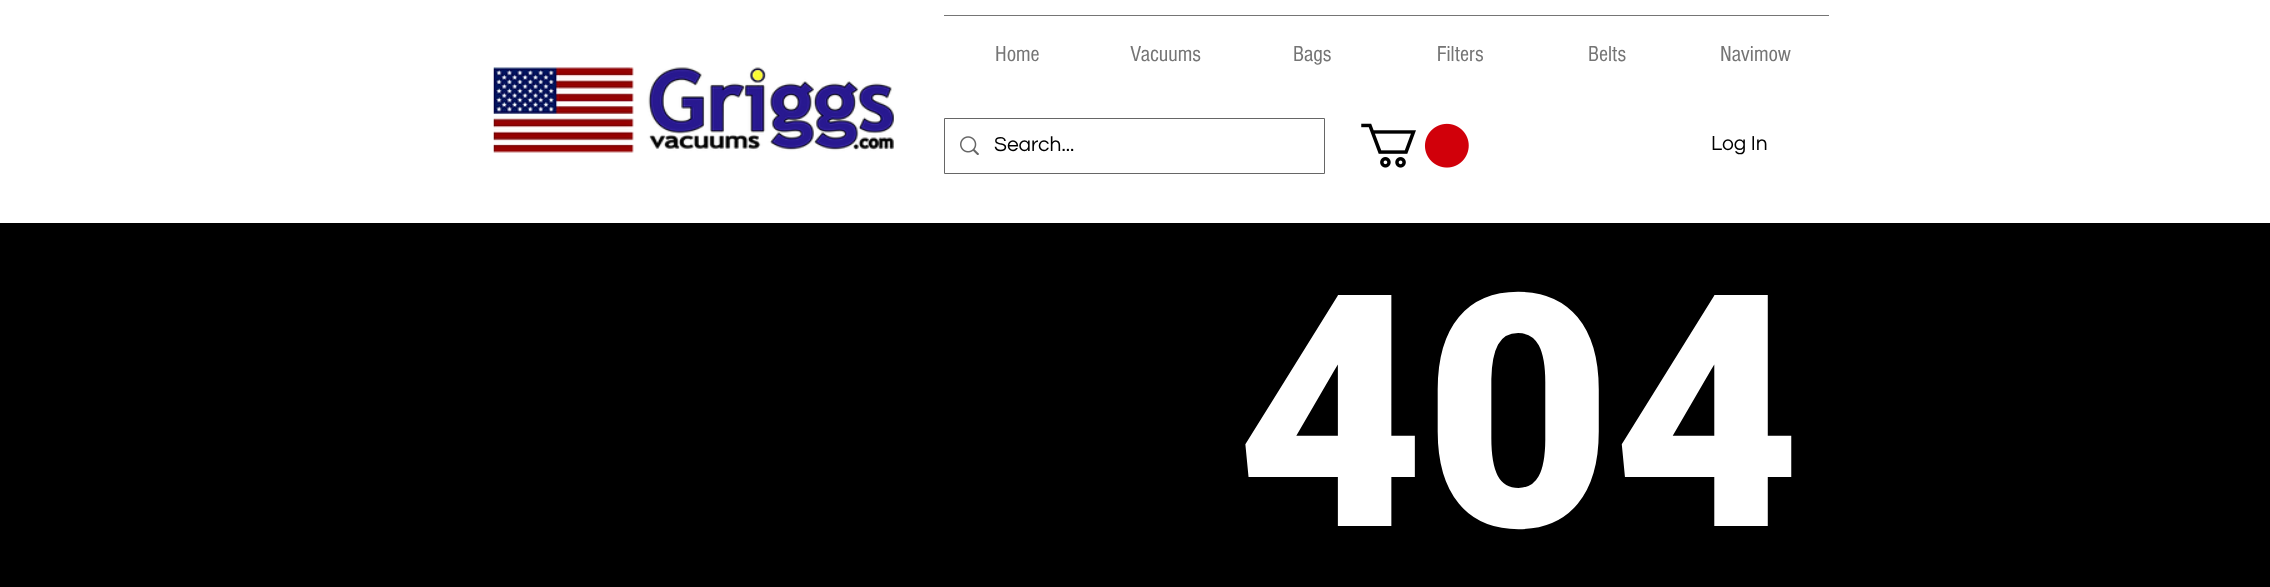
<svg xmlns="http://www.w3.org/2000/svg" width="2270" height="587">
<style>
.a{font:22.5px 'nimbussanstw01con';fill:#757575}
.b{font:21px Questrial;fill:#000}
.c{font:900 325px Roboto;fill:#fff}
</style>
<rect width="100%" height="100%" fill="#fff"/>
<path fill="#757575" d="M944 15h885v1H944z"/>
<image href="1.png" x="493" y="66" width="401" height="87"/>
<path fill="none" stroke="#666" d="M944.5 118.5h380v55H944.5z"/>
<image href="2.png" x="960" y="136" width="19" height="19"/>
<image href="3.png" x="1361" y="123" width="108" height="45"/>
<path fill="#000" d="M0 223h2270v364H0z"/>
<text class="a" x="995" y="61">Home</text>
<text class="a" x="1130" y="61">Vacuums</text>
<text class="a" x="1293" y="61">Bags</text>
<text class="a" x="1437" y="61">Filters</text>
<text class="a" x="1588" y="61">Belts</text>
<text class="a" x="1720" y="61">Navimow</text>
<text class="b" x="994" y="151">Search...</text>
<text class="b" x="1711" y="150">Log In</text>
<text class="c" x="1236" y="526">404</text>
</svg>
